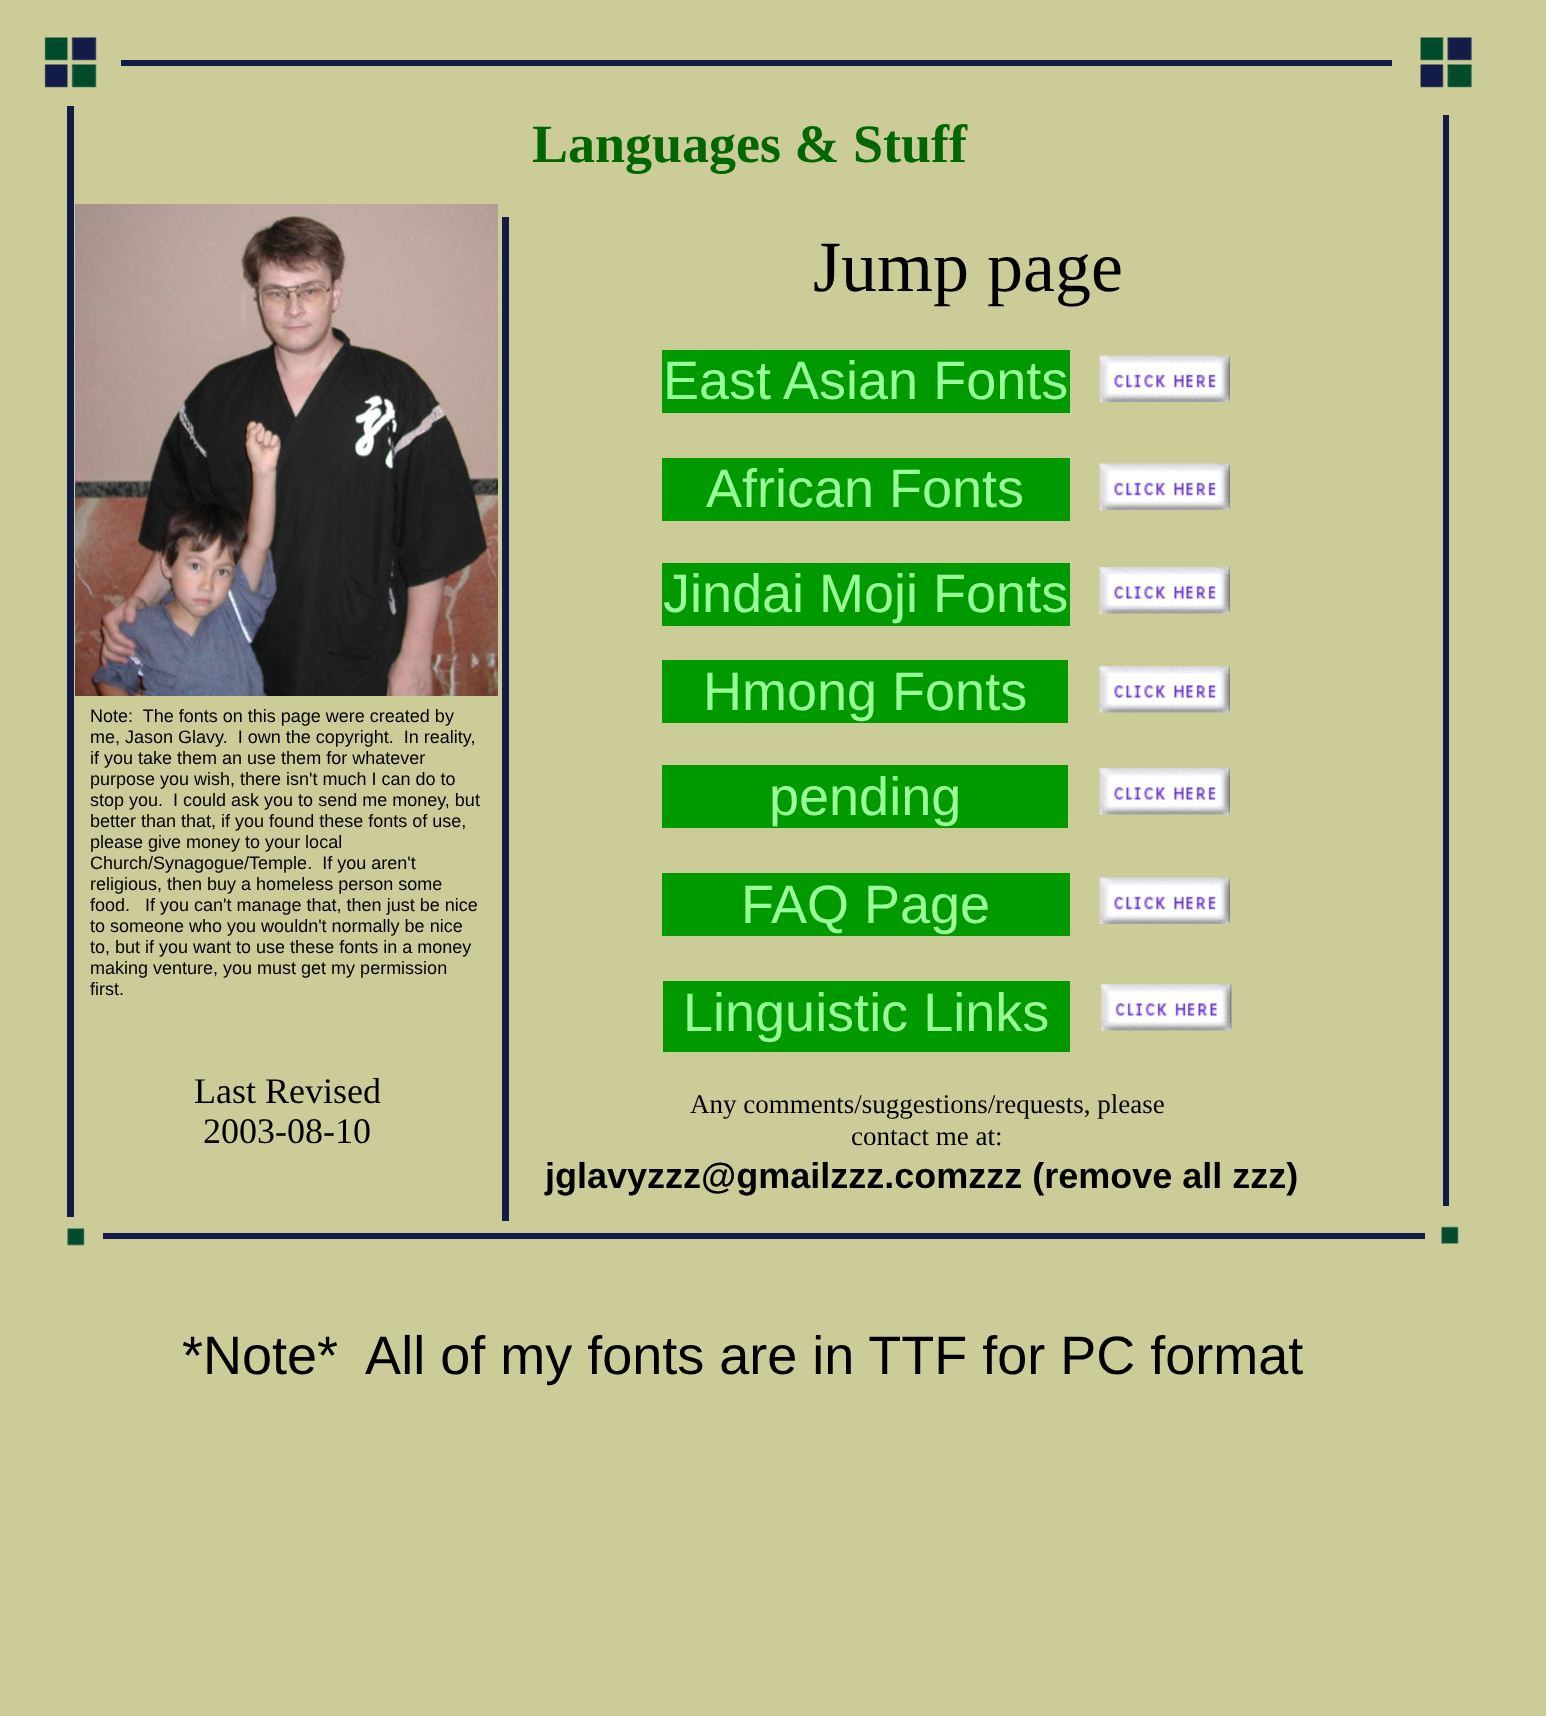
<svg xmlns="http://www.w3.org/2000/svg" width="1546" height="1716">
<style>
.a{font:bold 54px Liberation Serif;fill:#060}
.b{font:72px Liberation Serif;fill:#000}
.c{font:54px Liberation Sans;fill:#9f9}
.d{font:18px Liberation Sans;fill:#000}
.e{font:36px Liberation Serif;fill:#000}
.f{font:27px Liberation Serif;fill:#000}
.g{font:bold 36px Liberation Sans;fill:#000}
.h{font:54px Liberation Sans;fill:#000}
</style>
<rect width="100%" height="100%" fill="#cc9"/>
<image href="1.png" x="44" y="37" width="53" height="51"/>
<path fill="#131c46" d="M121 60h1271v6H121z"/>
<image href="2.png" x="1420" y="37" width="52" height="51"/>
<path fill="#131c46" d="M67 106h7v1111H67z"/>
<path fill="#131c46" d="M1443 115h6v1091H1443z"/>
<image href="3.png" x="75" y="204" width="423" height="492"/>
<path fill="#131c46" d="M502 217h7v1004H502z"/>
<path fill="#090" d="M662 350h408v63H662z"/>
<image href="4.png" x="1099" y="355" width="131" height="47"/>
<path fill="#090" d="M662 458h408v63H662z"/>
<image href="4.png" x="1099" y="463" width="131" height="47"/>
<path fill="#090" d="M662 563h408v63H662z"/>
<image href="5.png" x="1099" y="567" width="131" height="47"/>
<path fill="#090" d="M662 660h406v63H662z"/>
<image href="5.png" x="1099" y="666" width="131" height="47"/>
<path fill="#090" d="M662 765h406v63H662z"/>
<image href="5.png" x="1099" y="768" width="131" height="47"/>
<path fill="#090" d="M662 873h408v63H662z"/>
<image href="4.png" x="1099" y="877" width="131" height="47"/>
<path fill="#090" d="M663 981h407v71H663z"/>
<image href="6.png" x="1101" y="984" width="131" height="47"/>
<image href="7.png" x="67" y="1228" width="18" height="18"/>
<path fill="#131c46" d="M103 1233h1322v6H103z"/>
<image href="8.png" x="1441" y="1226" width="18" height="18"/>
<text class="a" x="532" y="162">Languages &amp; Stuff</text>
<text class="b" x="813" y="291">Jump page</text>
<text class="c" x="663" y="399">East Asian Fonts</text>
<text class="c" x="706" y="507">African Fonts</text>
<text class="c" x="663" y="612">Jindai Moji Fonts</text>
<text class="c" x="703" y="710">Hmong Fonts</text>
<text class="d" xml:space="preserve" x="90" y="722">Note:  The fonts on this page were created by</text>
<text class="d" xml:space="preserve" x="90" y="743">me, Jason Glavy.  I own the copyright.  In reality,</text>
<text class="d" x="90" y="764">if you take them an use them for whatever</text>
<text class="d" x="90" y="785">purpose you wish, there isn't much I can do to</text>
<text class="d" xml:space="preserve" x="90" y="806">stop you.  I could ask you to send me money, but</text>
<text class="d" x="90" y="827">better than that, if you found these fonts of use,</text>
<text class="d" x="90" y="848">please give money to your local</text>
<text class="d" xml:space="preserve" x="90" y="869">Church/Synagogue/Temple.  If you aren't</text>
<text class="d" x="90" y="890">religious, then buy a homeless person some</text>
<text class="d" xml:space="preserve" x="90" y="911">food.   If you can't manage that, then just be nice</text>
<text class="d" x="90" y="932">to someone who you wouldn't normally be nice</text>
<text class="d" x="90" y="953">to, but if you want to use these fonts in a money</text>
<text class="d" x="90" y="974">making venture, you must get my permission</text>
<text class="d" x="90" y="995">first.</text>
<text class="c" x="769" y="815">pending</text>
<text class="c" x="741" y="923">FAQ Page</text>
<text class="c" x="683" y="1031">Linguistic Links</text>
<text class="e" x="194" y="1103">Last Revised</text>
<text class="e" x="203" y="1143">2003-08-10</text>
<text class="f" x="690" y="1113">Any comments/suggestions/requests, please</text>
<text class="f" x="851" y="1145">contact me at:</text>
<text class="g" x="545" y="1188">jglavyzzz@gmailzzz.comzzz (remove all zzz)</text>
<text class="h" xml:space="preserve" x="182" y="1374">*Note*  All of my fonts are in TTF for PC format</text>
</svg>
